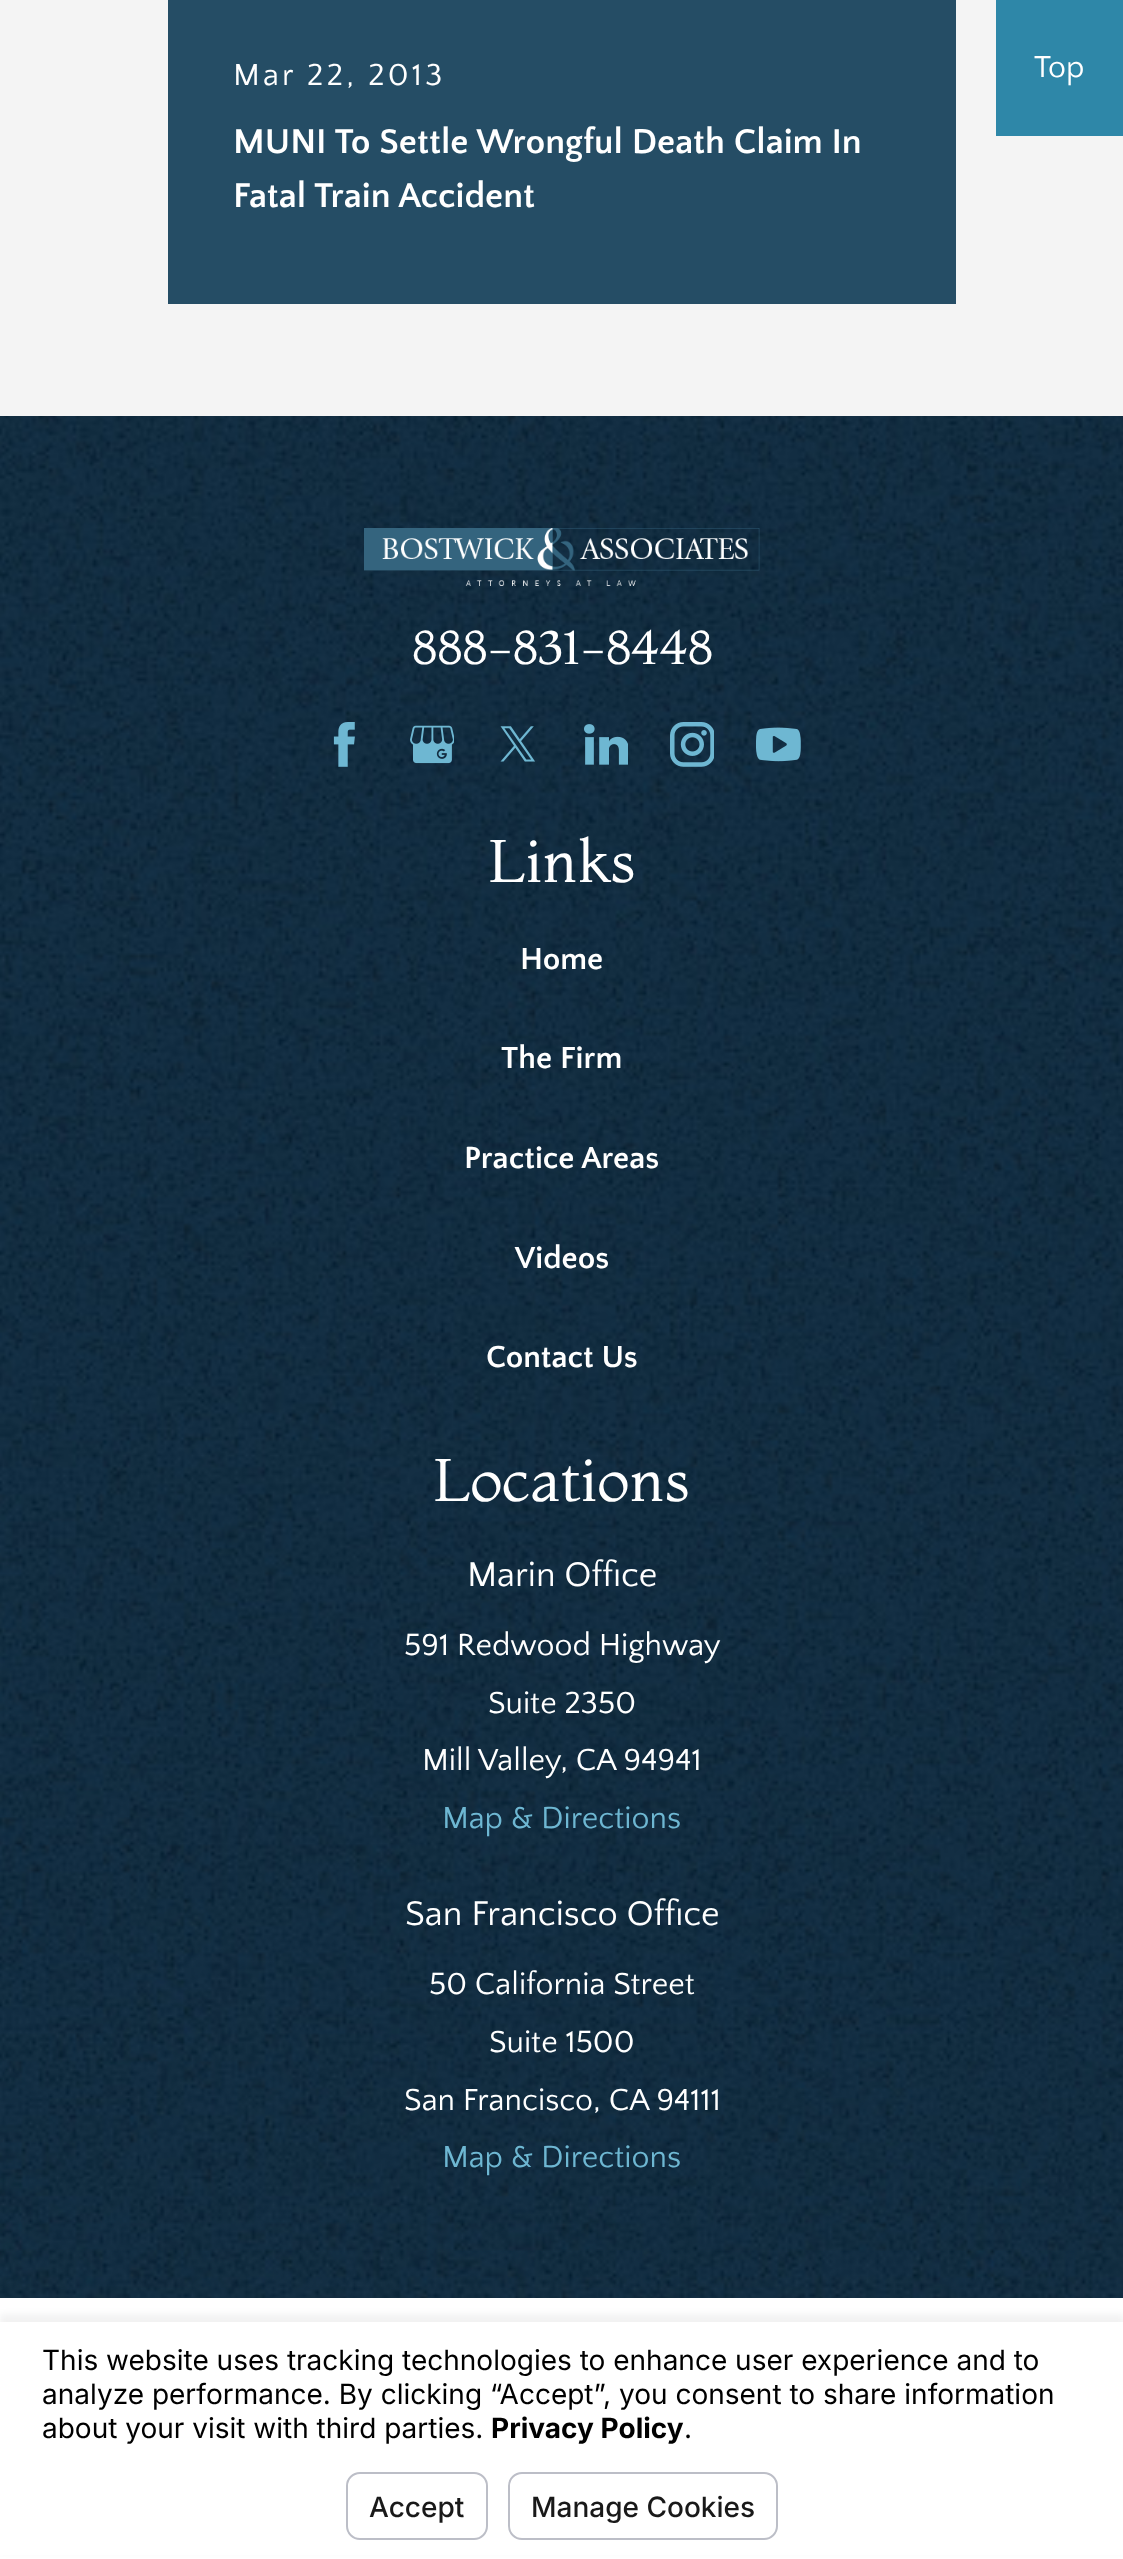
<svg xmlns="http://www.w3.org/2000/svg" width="1123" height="2559">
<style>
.a{font:32px Quattrocento Sans;letter-spacing:3.25px;fill:#fff}
.b{font:bold 36px Quattrocento Sans;fill:#fff}
.c{font:32px Quattrocento Sans;fill:#fff}
.d{font:48px Montaga;fill:#fff}
.e{font:60px Montaga;fill:#fff}
.f{font:bold 32px Quattrocento Sans;fill:#fff}
.g{font:36px Quattrocento Sans;fill:#fff}
.h{font:32px Quattrocento Sans;fill:#6eb7d2}
.i{font:28px Inter;fill:#000}
.j{font:bold 28px Inter;fill:#000}
.k{font:500 28px Inter;fill:#191919}
</style>
<rect width="100%" height="100%" fill="#fff"/>
<path fill="#f4f4f4" d="M0 0h1123v416H0z"/>
<path fill="#254d65" d="M168 0h788v304H168z"/>
<path fill="#2e87a8" d="M996 0h127v136H996z"/>
<image href="1.png" x="0" y="416" width="1123" height="1882"/>
<image href="2.png" x="364" y="528" width="396" height="58"/>
<image href="3.png" x="333" y="722" width="22" height="45"/>
<image href="4.png" x="410" y="725" width="44" height="39"/>
<image href="5.png" x="500" y="726" width="35" height="36"/>
<image href="6.png" x="584" y="724" width="44" height="41"/>
<image href="7.png" x="670" y="722" width="44" height="45"/>
<image href="8.png" x="756" y="727" width="45" height="35"/>
<path fill="#0000000d" filter="blur(3px)" d="M0 2314h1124v238H0z"/>
<path fill="#fff" d="M0 2322h1123v233H0z"/>
<rect fill="none" stroke="#bcbec7" stroke-width="2" x="347" y="2473" width="140" height="66" rx="13"/>
<rect fill="none" stroke="#bcbec7" stroke-width="2" x="509" y="2473" width="268" height="66" rx="13"/>
<text class="a" x="233" y="85">Mar 22, 2013</text>
<text class="b" x="233" y="153">MUNI To Settle Wrongful Death Claim In</text>
<text class="b" x="233" y="207">Fatal Train Accident</text>
<text class="c" x="1034" y="77">Top</text>
<text class="d" x="412" y="664">888-831-8448</text>
<text class="e" x="488" y="882">Links</text>
<text class="f" x="520" y="969">Home</text>
<text class="f" x="501" y="1068">The Firm</text>
<text class="f" x="464" y="1168">Practice Areas</text>
<text class="f" x="515" y="1268">Videos</text>
<text class="f" x="486" y="1367">Contact Us</text>
<text class="e" x="433" y="1501">Locations</text>
<text class="g" x="467" y="1586">Marin Office</text>
<text class="c" x="404" y="1655">591 Redwood Highway</text>
<text class="c" x="488" y="1713">Suite 2350</text>
<text class="c" x="422" y="1770">Mill Valley, CA 94941</text>
<text class="h" x="442" y="1828">Map &amp; Directions</text>
<text class="g" x="405" y="1925">San Francisco Office</text>
<text class="c" x="429" y="1994">50 California Street</text>
<text class="c" x="489" y="2052">Suite 1500</text>
<text class="c" x="404" y="2110">San Francisco, CA 94111</text>
<text class="h" x="442" y="2167">Map &amp; Directions</text>
<text class="i" x="42" y="2370">This website uses tracking technologies to enhance user experience and to</text>
<text class="i" x="42" y="2404">analyze performance. By clicking “Accept”, you consent to share information</text>
<text class="i" x="42" y="2438">about your visit with third parties.</text>
<text class="j" x="491" y="2438">Privacy Policy</text>
<text class="i" x="684" y="2438">.</text>
<text class="k" x="369" y="2517">Accept</text>
<text class="k" x="531" y="2517">Manage Cookies</text>
</svg>
